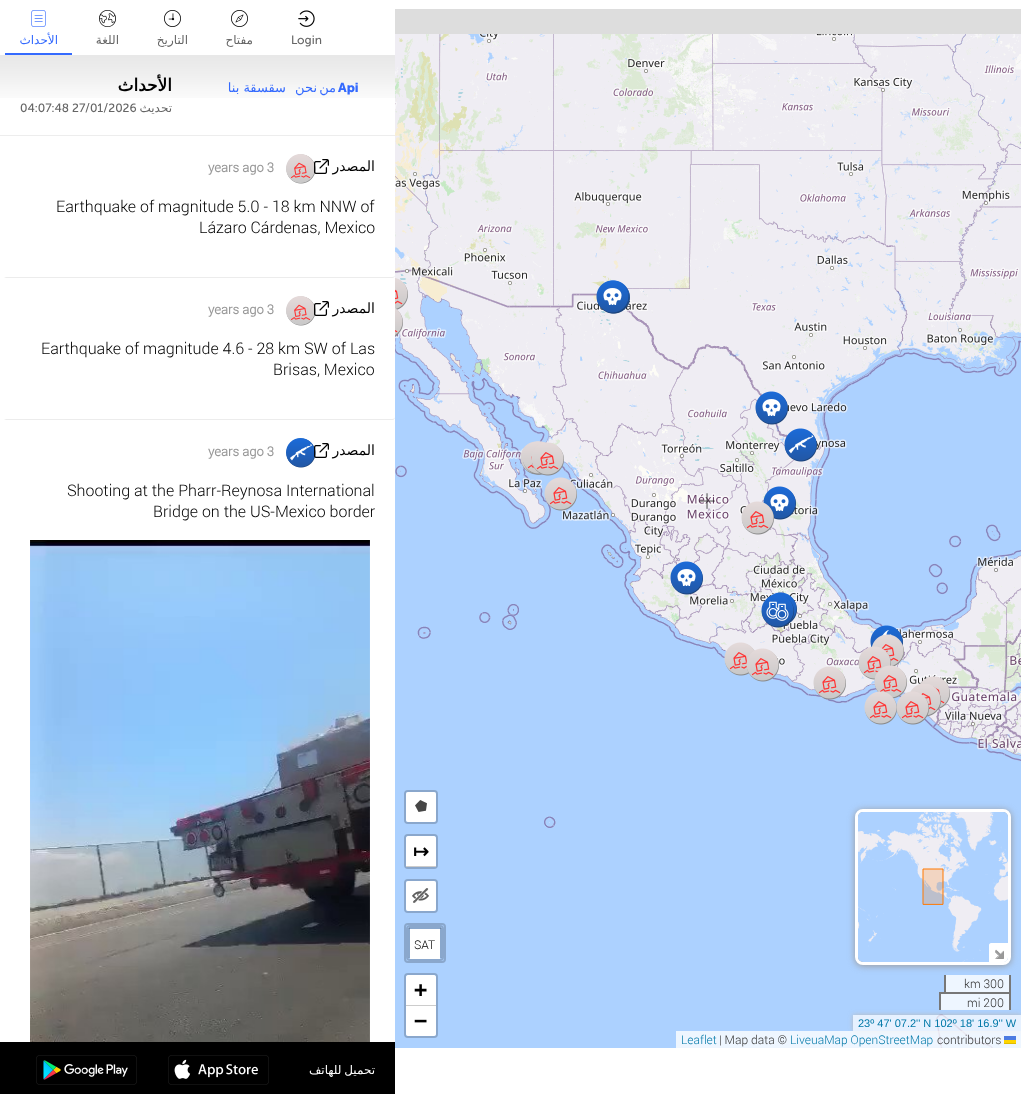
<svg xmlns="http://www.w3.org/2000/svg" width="1021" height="1094">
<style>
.a{font:12px DejaVu Sans;direction:rtl;fill:#346afe}
.b{font:12px DejaVu Sans;direction:rtl;fill:#666}
.c{font:12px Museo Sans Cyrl;fill:#666}
.d{font:bold 17px DejaVu Sans;direction:rtl;fill:#000}
.e{font:13px DejaVu Sans;direction:rtl;fill:#346afe}
.f{font:bold 13px Museo Sans Cyrl;fill:#346afe}
.g{font:bold 13px Roboto;fill:#999}
.h{font:14px DejaVu Sans;direction:rtl;fill:#000}
.i{font:300 16px Roboto;fill:#000}
.j{font:12px DejaVu Sans;direction:rtl;fill:#fff}
.k{font:bold 19px DejaVu Sans;fill:#000}
.l{font:300 12px Roboto;fill:#000}
.m{font:bold 22px DejaVu Sans Mono;fill:#000}
.n{font:300 12px Roboto;fill:#333}
.o{font:11px Liberation Sans;fill:#0078a8}
.p{font:300 12px Roboto;fill:#0078a8}
</style>
<defs>
<clipPath id="clip1"><path d="M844 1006h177v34h-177zm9 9h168v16h-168z" clip-rule="evenodd"/></clipPath>
</defs>
<rect width="100%" height="100%" fill="#fff"/>
<path fill="#346afe" d="M5 53h67v2H5z"/>
<image href="1.png" x="31" y="10" width="15" height="17"/>
<image href="2.png" x="99" y="10" width="17" height="17"/>
<image href="3.png" x="164" y="10" width="17" height="17"/>
<image href="4.png" x="231" y="10" width="17" height="17"/>
<image href="5.png" x="298" y="10" width="17" height="17"/>
<image href="6.png" x="0" y="55" width="395" height="43"/>
<path fill="#ededed" d="M0 135h395v1H0z"/>
<path fill="#ececec" d="M392 278c2 0 3-1 3-3c0 1-1 2-3 2h-386l-2 1h2z"/>
<image href="7.png" x="286" y="154" width="30" height="30"/>
<image href="8.png" x="314" y="159" width="15" height="15"/>
<path fill="#ececec" d="M392 420c2 0 3-1 3-3c0 1-1 2-3 2h-386l-2 1h2z"/>
<image href="7.png" x="286" y="296" width="30" height="30"/>
<image href="8.png" x="314" y="301" width="15" height="15"/>
<image href="9.png" x="286" y="438" width="30" height="30"/>
<image href="10.png" x="314" y="443" width="15" height="15"/>
<image href="11.png" x="30" y="540" width="340" height="502"/>
<path fill="#000" d="M0 1042h395v52H0z"/>
<image href="12.png" x="36" y="1055" width="101" height="30"/>
<image href="13.png" x="168" y="1055" width="101" height="30"/>
<path fill="#ddd" d="M395 9h626v25H395z"/>
<image href="14.png" x="395" y="34" width="80" height="256"/>
<image href="15.png" x="475" y="34" width="256" height="256"/>
<image href="16.png" x="731" y="34" width="256" height="256"/>
<image href="17.png" x="987" y="34" width="34" height="256"/>
<image href="18.png" x="395" y="290" width="80" height="256"/>
<image href="19.png" x="475" y="290" width="256" height="256"/>
<image href="20.png" x="731" y="290" width="256" height="256"/>
<image href="21.png" x="987" y="290" width="34" height="256"/>
<image href="22.png" x="395" y="546" width="80" height="256"/>
<image href="23.png" x="475" y="546" width="256" height="256"/>
<image href="24.png" x="731" y="546" width="256" height="256"/>
<image href="25.png" x="987" y="546" width="34" height="256"/>
<path fill="#acd1ff" d="M395 802h80v246H395z"/>
<image href="26.png" x="475" y="802" width="256" height="246"/>
<image href="27.png" x="731" y="802" width="256" height="246"/>
<image href="28.png" x="987" y="802" width="34" height="246"/>
<image href="29.png" x="395" y="278" width="13" height="32"/>
<image href="31.png" x="597" y="280" width="33" height="34"/>
<image href="30.png" x="596" y="280" width="33" height="34"/>
<image href="32.png" x="395" y="308" width="8" height="29"/>
<image href="33.png" x="755" y="391" width="33" height="34"/>
<image href="34.png" x="520" y="441" width="21" height="34"/>
<image href="35.png" x="784" y="428" width="33" height="34"/>
<image href="37.png" x="526" y="441" width="20" height="34"/>
<image href="36.png" x="523" y="441" width="22" height="34"/>
<image href="38.png" x="531" y="442" width="33" height="34"/>
<image href="39.png" x="544" y="477" width="33" height="34"/>
<image href="41.png" x="763" y="486" width="33" height="34"/>
<image href="40.png" x="741" y="501" width="33" height="34"/>
<image href="42.png" x="670" y="561" width="33" height="34"/>
<image href="43.png" x="767" y="592" width="30" height="34"/>
<image href="44.png" x="761" y="595" width="33" height="33"/>
<image href="45.png" x="870" y="625" width="33" height="22"/>
<image href="46.png" x="724" y="642" width="31" height="34"/>
<image href="47.png" x="871" y="634" width="33" height="33"/>
<image href="48.png" x="746" y="648" width="33" height="34"/>
<image href="49.png" x="858" y="646" width="33" height="34"/>
<image href="50.png" x="813" y="666" width="33" height="34"/>
<image href="51.png" x="874" y="665" width="33" height="34"/>
<image href="52.png" x="919" y="676" width="31" height="34"/>
<image href="53.png" x="864" y="691" width="33" height="34"/>
<image href="54.png" x="910" y="684" width="31" height="33"/>
<image href="55.png" x="896" y="691" width="33" height="34"/>
<image href="56.png" x="699" y="493" width="16" height="16"/>
<rect fill="none" stroke="#8aa7cc" stroke-width="2" x="405" y="791" width="32" height="32" rx="3"/>
<rect fill="#fff" x="406" y="792" width="30" height="30" rx="2"/>
<image href="57.png" x="415" y="800" width="12" height="12"/>
<rect fill="none" stroke="#8aa7cc" stroke-width="2" x="405" y="835" width="32" height="33" rx="3"/>
<path fill="#fff" d="M408 836h26c1 0 2 1 2 2v29h-30v-29c0-1 1-2 2-2z"/>
<path fill="#ccc" d="M406 866h30v1H406z"/>
<rect fill="none" stroke="#8aa7cc" stroke-width="2" x="405" y="880" width="32" height="32" rx="3"/>
<rect fill="#fff" x="406" y="881" width="30" height="30" rx="2"/>
<image href="58.png" x="412" y="888" width="17" height="15"/>
<rect fill="none" stroke="#8aa7cc" stroke-width="2" x="405" y="924" width="40" height="38" rx="3"/>
<rect fill="none" stroke="#8aa7cc" stroke-width="2" x="407" y="926" width="36" height="34" rx="3"/>
<path fill="#fff" d="M410 929h30v30h-30v-2z"/>
<path fill="#00000033" d="M409 927h32v2H409z"/>
<path fill="#00000033" d="M440 928h2v30H440z"/>
<path fill="#00000033" d="M408 928h2v30H408z"/>
<rect fill="none" stroke="#8aa7cc" stroke-width="2" x="405" y="974" width="32" height="63" rx="3"/>
<path fill="#fff" d="M408 975h26c1 0 2 1 2 2v29h-30v-29c0-1 1-2 2-2z"/>
<path fill="#ccc" d="M406 1005h30v1H406z"/>
<path fill="#fff" d="M406 1006h30v28c0 1-1 2-2 2h-26c-1 0-2-1-2-2z"/>
<rect fill="#999" filter="blur(3.5px)" x="855" y="810" width="156" height="156" rx="8"/>
<rect fill="none" stroke="#fff" stroke-width="3" x="856.5" y="810.5" width="153" height="153" rx="6.5"/>
<image href="59.png" x="858" y="812" width="20" height="150"/>
<image href="60.png" x="878" y="812" width="130" height="150"/>
<path fill="#ff780033" d="M923 869h20v35H923z"/>
<path fill="none" stroke="#ff7800" stroke-linecap="round" stroke-linejoin="round" d="M923 904v-35h20v35z"/>
<path fill="#fff" d="M991 943h17v14c0 3-2 5-5 5h-14v-17c0-1 1-2 2-2z"/>
<image href="61.png" x="995" y="949" width="9" height="10"/>
<path fill="#eef6ff" d="M946 975h63v17H946z"/>
<path fill="#777" d="M1009 975h2v19H1009z"/>
<path fill="#777" d="M944 975h2v19H944z"/>
<path fill="#ffffffcc" d="M941 994h68v16H941z"/>
<path fill="#777" d="M939 992h72v2H939z"/>
<path fill="#777" d="M1009 992h2v18H1009z"/>
<path fill="#777" d="M939 992h2v18H939z"/>
<g clip-path="url(#clip1)">
<path fill="#bbb" filter="blur(2.5px)" d="M853 1015h168v16H853z"/>
</g>
<path fill="#ffffffb3" d="M853 1015h168v16H853z"/>
<path fill="#ffffffcc" d="M676 1031h345v17H676z"/>
<path fill="#4c7be1" d="M1004 1036h12v4H1004z"/>
<path fill="#ffd500" d="M1004 1040h12v3H1004z"/>
<path fill="#e0bc00" d="M1004 1043h12v1H1004z"/>
<text class="a" x="58" y="44">الأحداث</text>
<text class="b" x="119" y="44">اللغة</text>
<text class="b" x="188" y="44">التاريخ</text>
<text class="b" x="253" y="44">مفتاح</text>
<text class="c" x="291" y="44">Login</text>
<text class="d" x="172" y="91">الأحداث</text>
<text class="c" x="20" y="112">04:07:48 27/01/2026</text>
<text class="b" x="172" y="112">تحديث</text>
<text class="e" x="286" y="92">سقسقة بنا</text>
<text class="e" x="336" y="92" word-spacing="-2">من نحن</text>
<text class="f" x="338" y="92">Api</text>
<text class="g" x="208" y="172">years ago 3</text>
<text class="h" x="375" y="171">المصدر</text>
<text class="i" x="56" y="212">Earthquake of magnitude 5.0 - 18 km NNW of</text>
<text class="i" x="199" y="233">Lázaro Cárdenas, Mexico</text>
<text class="g" x="208" y="314">years ago 3</text>
<text class="h" x="375" y="313">المصدر</text>
<text class="i" x="41" y="354">Earthquake of magnitude 4.6 - 28 km SW of Las</text>
<text class="i" x="273" y="375">Brisas, Mexico</text>
<text class="g" x="208" y="456">years ago 3</text>
<text class="h" x="375" y="455">المصدر</text>
<text class="i" x="67" y="496">Shooting at the Pharr-Reynosa International</text>
<text class="i" x="153" y="517">Bridge on the US-Mexico border</text>
<text class="j" x="375" y="1074" word-spacing="-1">تحميل للهاتف</text>
<text class="k" x="413" y="858">↦</text>
<text class="l" x="414" y="949">SAT</text>
<text class="m" x="414" y="997">+</text>
<text class="m" x="414" y="1028">−</text>
<text class="n" x="964" y="988">km 300</text>
<text class="n" x="967" y="1007">mi 200</text>
<text class="o" x="858" y="1027">23º 47' 07.2'' N 102º 18' 16.9'' W</text>
<text class="p" x="681" y="1044">Leaflet</text>
<text class="n" x="719" y="1044">| Map data ©</text>
<text class="p" x="790" y="1044">LiveuaMap OpenStreetMap</text>
<text class="n" x="937" y="1044">contributors</text>
</svg>
